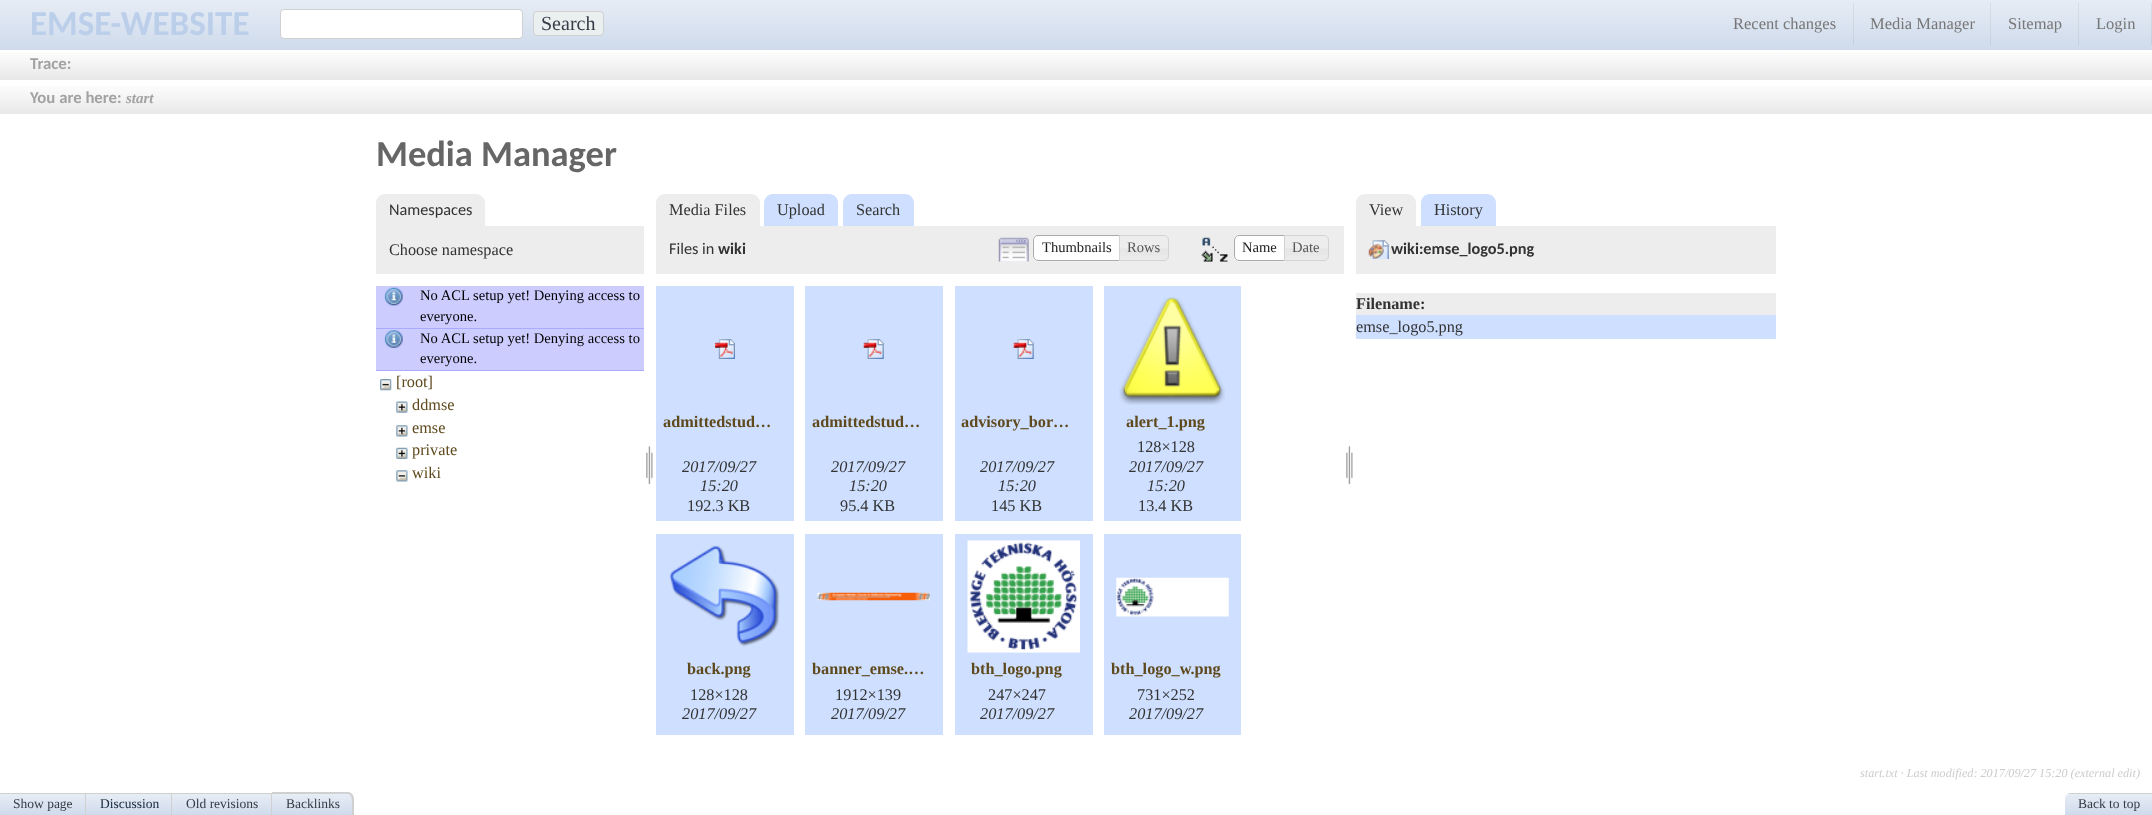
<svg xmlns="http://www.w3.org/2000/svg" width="2152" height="815">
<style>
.a{font:bold 35px Carlito;fill:#bccfea}
.b{font:20px Liberation Serif;fill:#353d48}
.c{font:16.5px Liberation Serif;fill:#777}
.d{font:bold 16.75px Carlito;fill:#a2a2a2}
.e{font:italic bold 15px Liberation Serif;fill:#a2a2a2}
.f{font:bold 36.5px Carlito;fill:#666}
.g{font:16.25px Carlito;fill:#333}
.h{font:16.25px Liberation Serif;fill:#333}
.i{font:14.6px Liberation Serif;fill:#000}
.j{font:16.25px Liberation Serif;fill:#5f4a1e}
.k{font:bold 16.25px Carlito;fill:#333}
.l{font:14.6px Liberation Serif;fill:#212121}
.m{font:14.6px Liberation Serif;fill:#555}
.n{font:bold 16.25px Liberation Serif;fill:#5f4a1e}
.o{font:italic 16.25px Liberation Serif;fill:#333}
.p{font:bold 16.25px Liberation Serif;fill:#333}
.q{font:13.5px Liberation Serif;fill:#353d48}
.r{font:13.5px Liberation Serif;fill:#14273e}
.s{font:italic 12.2px Liberation Serif;fill:#ccc}
</style>
<defs>
<linearGradient id="g1" gradientUnits="userSpaceOnUse" x1="1076" y1="-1.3" x2="1076" y2="49"><stop offset="0" stop-color="#e7edf5"/><stop offset="1" stop-color="#cfdbec"/></linearGradient>
<linearGradient id="g2" gradientUnits="userSpaceOnUse" x1="1076" y1="-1.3" x2="1076" y2="49"><stop offset="0" stop-color="#d9dfe6"/><stop offset="1" stop-color="#c3cede"/></linearGradient>
<linearGradient id="g3" gradientUnits="userSpaceOnUse" x1="1076" y1="50" x2="1076" y2="80"><stop offset="0" stop-color="#fefefe"/><stop offset="1" stop-color="#e8e8e8"/></linearGradient>
<linearGradient id="g4" gradientUnits="userSpaceOnUse" x1="1076" y1="84" x2="1076" y2="114"><stop offset="0" stop-color="#fefefe"/><stop offset="1" stop-color="#e8e8e8"/></linearGradient>
<linearGradient id="g5" gradientUnits="userSpaceOnUse" x1="43" y1="794" x2="43" y2="815"><stop offset="0" stop-color="#e7edf5"/><stop offset="1" stop-color="#cfdbec"/></linearGradient>
<linearGradient id="g6" gradientUnits="userSpaceOnUse" x1="129" y1="794" x2="129" y2="815"><stop offset="0" stop-color="#e7edf5"/><stop offset="1" stop-color="#cfdbec"/></linearGradient>
<linearGradient id="g7" gradientUnits="userSpaceOnUse" x1="222" y1="794" x2="222" y2="815"><stop offset="0" stop-color="#e7edf5"/><stop offset="1" stop-color="#cfdbec"/></linearGradient>
<clipPath id="clip1"><path d="M273 793h75c3.5 0 6 2.5 6 6v16h-81z"/></clipPath>
<linearGradient id="g8" gradientUnits="userSpaceOnUse" x1="313" y1="773" x2="313" y2="794"><stop offset="0" stop-color="#e7edf5"/><stop offset="1" stop-color="#cfdbec"/></linearGradient>
<linearGradient id="g9" gradientUnits="userSpaceOnUse" x1="313" y1="794" x2="313" y2="815"><stop offset="0" stop-color="#e7edf5"/><stop offset="1" stop-color="#cfdbec"/></linearGradient>
<clipPath id="clip2"><path d="M2071 793h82v22h-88v-16c0-3.5 2.5-6 6-6z"/></clipPath>
<linearGradient id="g10" gradientUnits="userSpaceOnUse" x1="2109" y1="773" x2="2109" y2="794"><stop offset="0" stop-color="#e7edf5"/><stop offset="1" stop-color="#cfdbec"/></linearGradient>
<linearGradient id="g11" gradientUnits="userSpaceOnUse" x1="2109" y1="794" x2="2109" y2="815"><stop offset="0" stop-color="#e7edf5"/><stop offset="1" stop-color="#cfdbec"/></linearGradient>
</defs>
<rect width="100%" height="100%" fill="#fff"/>
<path fill="url(#g1)" d="M0 0h2152v49H0z"/>
<path fill="url(#g2)" d="M2151 3h1v42H2151z"/>
<path fill="url(#g2)" d="M2078 3h1v42H2078z"/>
<path fill="url(#g2)" d="M1990 3h1v42H1990z"/>
<path fill="url(#g2)" d="M1853 3h1v42H1853z"/>
<path fill="#cfdbec" d="M0 49h2152v1H0z"/>
<rect fill="#fff" stroke="#d0d0d0" x="280.5" y="9.5" width="242" height="29" rx="3.5"/>
<rect fill="#eaf0f0" stroke="#d0d0d0" x="533.5" y="11.5" width="70" height="24" rx="3.5"/>
<path fill="url(#g3)" d="M0 52h2152v28H0z"/>
<path fill="url(#g4)" d="M0 86h2152v28H0z"/>
<path fill="#ededed" d="M385 194h91c5 0 9 4 9 9v23h-109v-23c0-5 4-9 9-9z"/>
<path fill="#ededed" d="M376 226h268v48H376z"/>
<path fill="#ccf" d="M376 286h268v42H376z"/>
<image href="1.png" x="384" y="287" width="19" height="19"/>
<path fill="#aaf" d="M376 328h268v1H376z"/>
<path fill="#ccf" d="M376 329h268v41H376z"/>
<image href="2.png" x="384" y="330" width="19" height="18"/>
<path fill="#aaf" d="M376 370h268v1H376z"/>
<image href="3.png" x="380" y="379" width="12" height="12"/>
<image href="4.png" x="396" y="401" width="12" height="12"/>
<image href="5.png" x="396" y="425" width="12" height="12"/>
<image href="6.png" x="396" y="447" width="12" height="12"/>
<image href="7.png" x="396" y="470" width="12" height="12"/>
<image href="8.png" x="646" y="445" width="7" height="40"/>
<path fill="#ededed" d="M665 194h86c5 0 9 4 9 9v23h-104v-23c0-5 4-9 9-9z"/>
<path fill="#cedfff" d="M773 194h56c5 0 9 4 9 9v23h-74v-23c0-5 4-9 9-9z"/>
<path fill="#cedfff" d="M852 194h53c5 0 9 4 9 9v23h-71v-23c0-5 4-9 9-9z"/>
<path fill="#ededed" d="M656 226h688v48H656z"/>
<image href="9.png" x="998" y="237" width="31" height="25"/>
<image href="10.png" x="1032" y="236" width="88" height="26"/>
<path fill="none" stroke="#aaa" d="M1038 235.5h81.5v25h-81.5c-2.5 0-4.5-2-4.5-4.5v-16c0-2.5 2-4.5 4.5-4.5z"/>
<image href="11.png" x="1118" y="236" width="50" height="25"/>
<path fill="none" stroke="#d3d3d3" d="M1119.5 235.5h44.5c2.5 0 4.5 2 4.5 4.5v16c0 2.5-2 4.5-4.5 4.5h-44.5z"/>
<image href="12.png" x="1201" y="237" width="27" height="25"/>
<path fill="#fff" d="M1239 235h46v26h-46c-3 0-5-2-5-5v-16c0-3 2-5 5-5z"/>
<image href="13.png" x="1234" y="237" width="51" height="25"/>
<path fill="none" stroke="#aaa" d="M1239 235.5h45.5v25h-45.5c-2.5 0-4.5-2-4.5-4.5v-16c0-2.5 2-4.5 4.5-4.5z"/>
<image href="14.png" x="1283" y="236" width="45" height="25"/>
<path fill="none" stroke="#d3d3d3" d="M1284.5 235.5h39.5c2.5 0 4.5 2 4.5 4.5v16c0 2.5-2 4.5-4.5 4.5h-39.5z"/>
<path fill="#cedfff" d="M656 286h138v235H656z"/>
<image href="15.png" x="715" y="339" width="20" height="20"/>
<path fill="#cedfff" d="M805 286h138v235H805z"/>
<image href="16.png" x="863" y="339" width="21" height="20"/>
<path fill="#cedfff" d="M955 286h138v235H955z"/>
<image href="17.png" x="1013" y="339" width="21" height="20"/>
<path fill="#cedfff" d="M1104 286h137v235H1104z"/>
<image href="18.png" x="1119" y="297" width="106" height="108"/>
<path fill="#cedfff" d="M656 534h138v201H656z"/>
<image href="19.png" x="669" y="545" width="111" height="102"/>
<path fill="#cedfff" d="M805 534h138v201H805z"/>
<image href="20.png" x="817" y="592" width="113" height="9"/>
<path fill="#cedfff" d="M955 534h138v201H955z"/>
<image href="21.png" x="967" y="540" width="113" height="113"/>
<path fill="#cedfff" d="M1104 534h137v201H1104z"/>
<image href="22.png" x="1116" y="577" width="113" height="40"/>
<image href="8.png" x="1346" y="445" width="7" height="40"/>
<path fill="#ededed" d="M1365 194h42c5 0 9 4 9 9v23h-60v-23c0-5 4-9 9-9z"/>
<path fill="#cedfff" d="M1430 194h57c5 0 9 4 9 9v23h-75v-23c0-5 4-9 9-9z"/>
<path fill="#ededed" d="M1356 226h420v48H1356z"/>
<image href="23.png" x="1368" y="240" width="21" height="19"/>
<path fill="#ededed" d="M1356 293h420v22H1356z"/>
<path fill="#cedfff" d="M1356 315h420v24H1356z"/>
<path fill="url(#g5)" d="M0 794h85v21H0z"/>
<path fill="#d0d0d0" d="M0 793h273v1H0z"/>
<path fill="#d0d0d0" d="M85 793h1v22H85z"/>
<path fill="url(#g6)" d="M86 794h87v21H86z"/>
<path fill="#d0d0d0" d="M171 793h1v22H171z"/>
<path fill="url(#g7)" d="M173 794h100v21H173z"/>
<path fill="#d0d0d0" d="M271 793h1v22H271z"/>
<g clip-path="url(#clip1)">
<path fill="url(#g8)" d="M323 793h31v1H323z"/>
<path fill="url(#g9)" d="M273 794h81v21H273z"/>
</g>
<path fill="#d0d0d0" fill-rule="evenodd" d="M272 792h76c3 0 6 3 6 7v16h-82zm0 2h50c33 0 30-6 30 21h-80z"/>
<g clip-path="url(#clip2)">
<path fill="url(#g10)" d="M2065 793h4v1H2065z"/>
<path fill="url(#g11)" d="M2065 794h87v21H2065z"/>
</g>
<path fill="#d0d0d0" d="M2069 793h83v1H2069z"/>
<text class="a" x="30" y="35">EMSE-WEBSITE</text>
<text class="b" x="541" y="30">Search</text>
<text class="c" x="1733" y="29">Recent changes</text>
<text class="c" x="1870" y="29">Media Manager</text>
<text class="c" x="2008" y="29">Sitemap</text>
<text class="c" x="2096" y="29">Login</text>
<text class="d" x="30" y="69">Trace:</text>
<text class="d" x="30" y="103">You are here:</text>
<text class="e" x="126" y="103">start</text>
<text class="f" x="376" y="166">Media Manager</text>
<text class="g" x="389" y="215">Namespaces</text>
<text class="h" x="389" y="255">Choose namespace</text>
<text class="i" x="420" y="300">No ACL setup yet! Denying access to</text>
<text class="i" x="420" y="321">everyone.</text>
<text class="i" x="420" y="343">No ACL setup yet! Denying access to</text>
<text class="i" x="420" y="363">everyone.</text>
<text class="j" x="396" y="387">[root]</text>
<text class="j" x="412" y="410">ddmse</text>
<text class="j" x="412" y="433">emse</text>
<text class="j" x="412" y="455">private</text>
<text class="j" x="412" y="478">wiki</text>
<text class="h" x="669" y="215">Media Files</text>
<text class="h" x="777" y="215">Upload</text>
<text class="h" x="856" y="215">Search</text>
<text class="g" x="669" y="254">Files in</text>
<text class="k" x="718" y="254">wiki</text>
<text class="l" x="1042" y="252">Thumbnails</text>
<text class="m" x="1127" y="252">Rows</text>
<text class="l" x="1242" y="252">Name</text>
<text class="m" x="1292" y="252">Date</text>
<text class="n" x="663" y="427">admittedstud…</text>
<text class="o" x="682" y="472">2017/09/27</text>
<text class="o" x="700" y="491">15:20</text>
<text class="h" x="687" y="511">192.3 KB</text>
<text class="n" x="812" y="427">admittedstud…</text>
<text class="o" x="831" y="472">2017/09/27</text>
<text class="o" x="849" y="491">15:20</text>
<text class="h" x="840" y="511">95.4 KB</text>
<text class="n" x="961" y="427">advisory_bor…</text>
<text class="o" x="980" y="472">2017/09/27</text>
<text class="o" x="998" y="491">15:20</text>
<text class="h" x="991" y="511">145 KB</text>
<text class="n" x="1126" y="427">alert_1.png</text>
<text class="h" x="1137" y="452">128×128</text>
<text class="o" x="1129" y="472">2017/09/27</text>
<text class="o" x="1147" y="491">15:20</text>
<text class="h" x="1138" y="511">13.4 KB</text>
<text class="n" x="687" y="674">back.png</text>
<text class="h" x="690" y="700">128×128</text>
<text class="o" x="682" y="719">2017/09/27</text>
<text class="n" x="812" y="674">banner_emse.…</text>
<text class="h" x="835" y="700">1912×139</text>
<text class="o" x="831" y="719">2017/09/27</text>
<text class="n" x="971" y="674">bth_logo.png</text>
<text class="h" x="988" y="700">247×247</text>
<text class="o" x="980" y="719">2017/09/27</text>
<text class="n" x="1111" y="674">bth_logo_w.png</text>
<text class="h" x="1137" y="700">731×252</text>
<text class="o" x="1129" y="719">2017/09/27</text>
<text class="h" x="1369" y="215">View</text>
<text class="h" x="1434" y="215">History</text>
<text class="k" x="1391" y="254">wiki:emse_logo5.png</text>
<text class="p" x="1356" y="309">Filename:</text>
<text class="h" x="1356" y="332">emse_logo5.png</text>
<text class="q" x="13" y="808">Show page</text>
<text class="r" x="100" y="808">Discussion</text>
<text class="q" x="186" y="808">Old revisions</text>
<text class="q" x="286" y="808">Backlinks</text>
<text class="q" x="2078" y="808">Back to top</text>
<text class="s" x="1860" y="777">start.txt · Last modified: 2017/09/27 15:20 (external edit)</text>
</svg>
